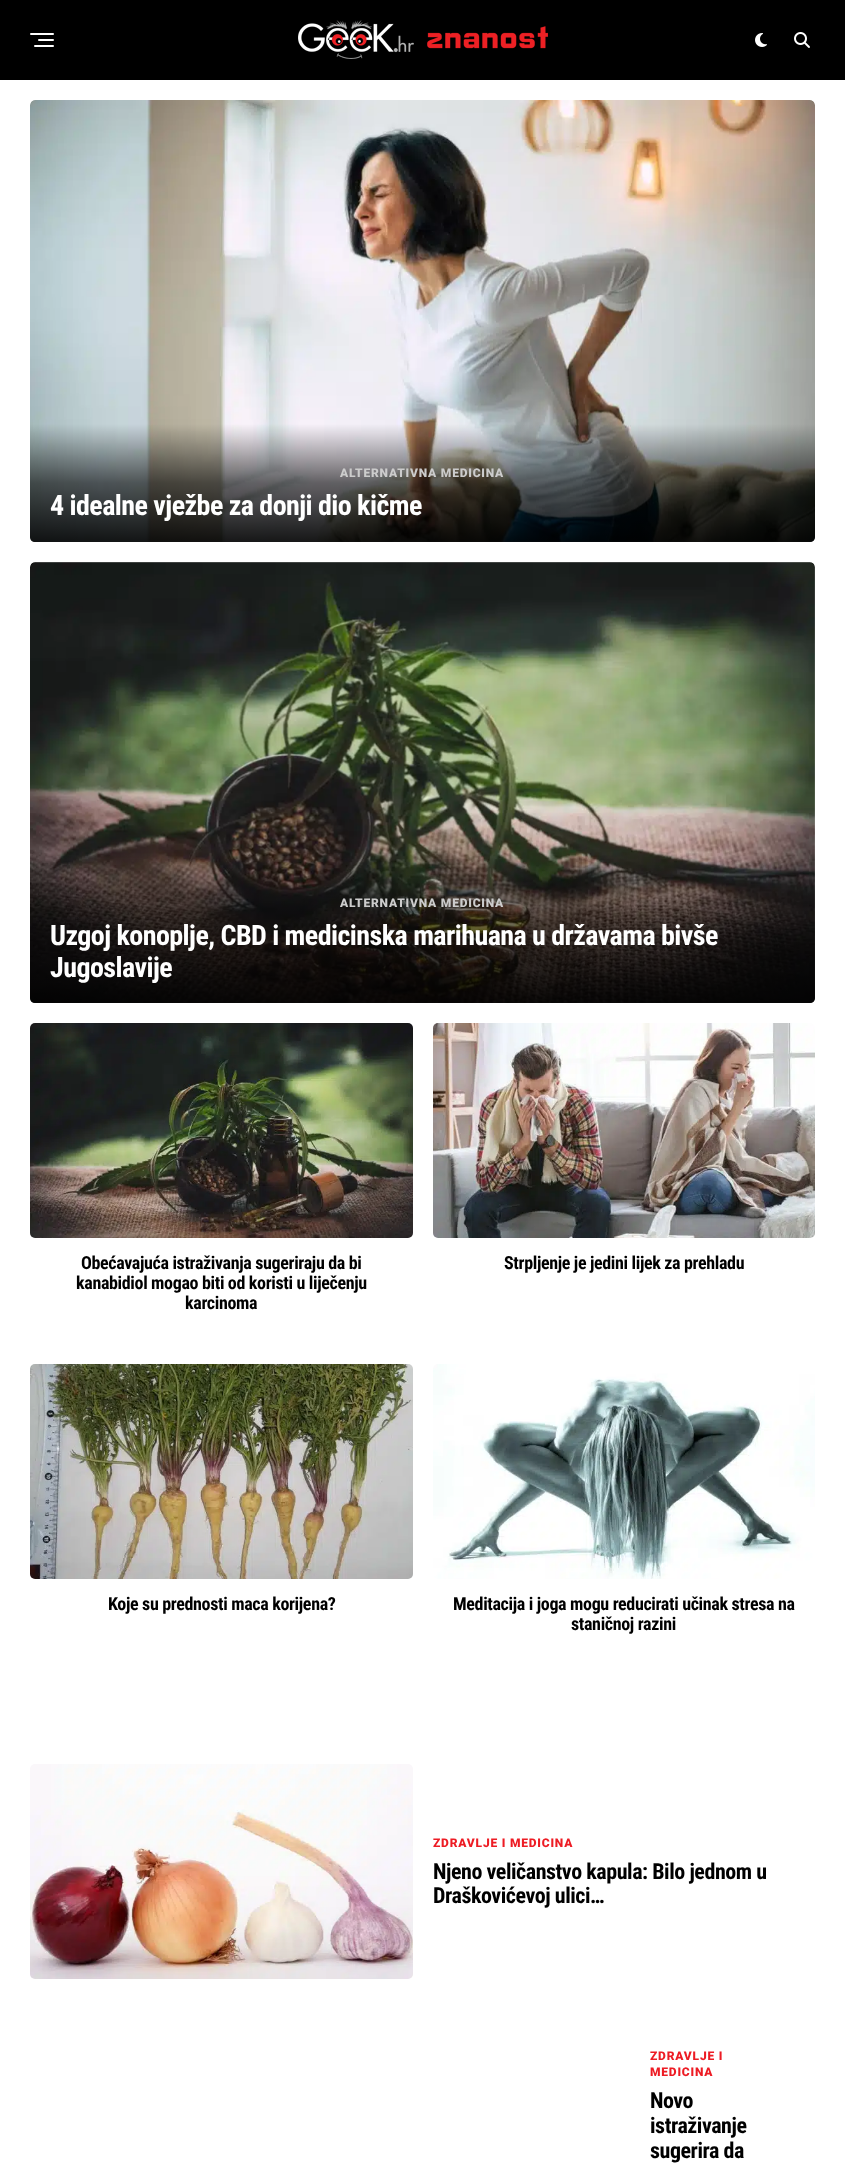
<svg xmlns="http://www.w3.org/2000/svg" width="845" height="2167">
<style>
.a{font:900 12px Roboto;letter-spacing:0.8px;fill:#ccc}
.b{font:bold 28px Roboto Condensed;letter-spacing:-0.55px;fill:#fff}
.c{font:bold 18px Roboto Condensed;letter-spacing:-0.35px;fill:#000}
.d{font:900 12px Roboto;letter-spacing:0.8px;fill:#ed1c24}
.e{font:bold 22px Roboto Condensed;letter-spacing:-0.45px;fill:#000}
</style>
<defs>
<linearGradient id="g1" gradientUnits="userSpaceOnUse" x1="423" y1="424" x2="423" y2="542"><stop offset="0" stop-color="#000" stop-opacity="0"/><stop offset="0.5" stop-color="#000" stop-opacity="0.6"/><stop offset="1" stop-color="#000" stop-opacity="0.9"/></linearGradient>
<linearGradient id="g2" gradientUnits="userSpaceOnUse" x1="423" y1="854" x2="423" y2="1003"><stop offset="0" stop-color="#000" stop-opacity="0"/><stop offset="0.5" stop-color="#000" stop-opacity="0.6"/><stop offset="1" stop-color="#000" stop-opacity="0.9"/></linearGradient>
</defs>
<rect width="100%" height="100%" fill="#fff"/>
<path fill="#000" d="M0 0h845v80H0z"/>
<rect fill="#fff" x="30" y="33" width="24" height="2" rx="1"/>
<rect fill="#fff" x="38" y="39" width="16" height="2" rx="1"/>
<rect fill="#fff" x="34" y="45" width="20" height="2" rx="1"/>
<image href="1.png" x="298" y="20" width="250" height="39"/>
<image href="2.png" x="755" y="33" width="12" height="14"/>
<image href="3.png" x="794" y="32" width="16" height="16"/>
<image href="4.png" x="30" y="100" width="785" height="442"/>
<path fill="url(#g1)" d="M30 424h785v113c0 3-2 5-5 5h-775c-3 0-5-2-5-5z"/>
<image href="5.png" x="30" y="562" width="785" height="441"/>
<path fill="url(#g2)" d="M30 854h785v144c0 3-2 5-5 5h-775c-3 0-5-2-5-5z"/>
<image href="6.png" x="30" y="1023" width="383" height="215"/>
<image href="7.png" x="433" y="1023" width="382" height="215"/>
<image href="8.png" x="30" y="1364" width="383" height="215"/>
<image href="9.png" x="433" y="1364" width="382" height="215"/>
<image href="10.png" x="30" y="1764" width="383" height="215"/>
<text class="a" x="340" y="477">ALTERNATIVNA MEDICINA</text>
<text class="b" x="50" y="515">4 idealne vježbe za donji dio kičme</text>
<text class="a" x="340" y="907">ALTERNATIVNA MEDICINA</text>
<text class="b" x="50" y="945">Uzgoj konoplje, CBD i medicinska marihuana u državama bivše</text>
<text class="b" x="50" y="977">Jugoslavije</text>
<text class="c" x="81" y="1269">Obećavajuća istraživanja sugeriraju da bi</text>
<text class="c" x="76" y="1289">kanabidiol mogao biti od koristi u liječenju</text>
<text class="c" x="185" y="1309">karcinoma</text>
<text class="c" x="504" y="1269">Strpljenje je jedini lijek za prehladu</text>
<text class="c" x="108" y="1610">Koje su prednosti maca korijena?</text>
<text class="c" x="453" y="1610">Meditacija i joga mogu reducirati učinak stresa na</text>
<text class="c" x="571" y="1630">staničnoj razini</text>
<text class="d" x="433" y="1847">ZDRAVLJE I MEDICINA</text>
<text class="e" x="433" y="1879">Njeno veličanstvo kapula: Bilo jednom u</text>
<text class="e" x="433" y="1903">Draškovićevoj ulici…</text>
<text class="d" x="650" y="2060">ZDRAVLJE I</text>
<text class="d" x="650" y="2076">MEDICINA</text>
<text class="e" x="650" y="2108">Novo</text>
<text class="e" x="650" y="2133">istraživanje</text>
<text class="e" x="650" y="2158">sugerira da</text>
</svg>
